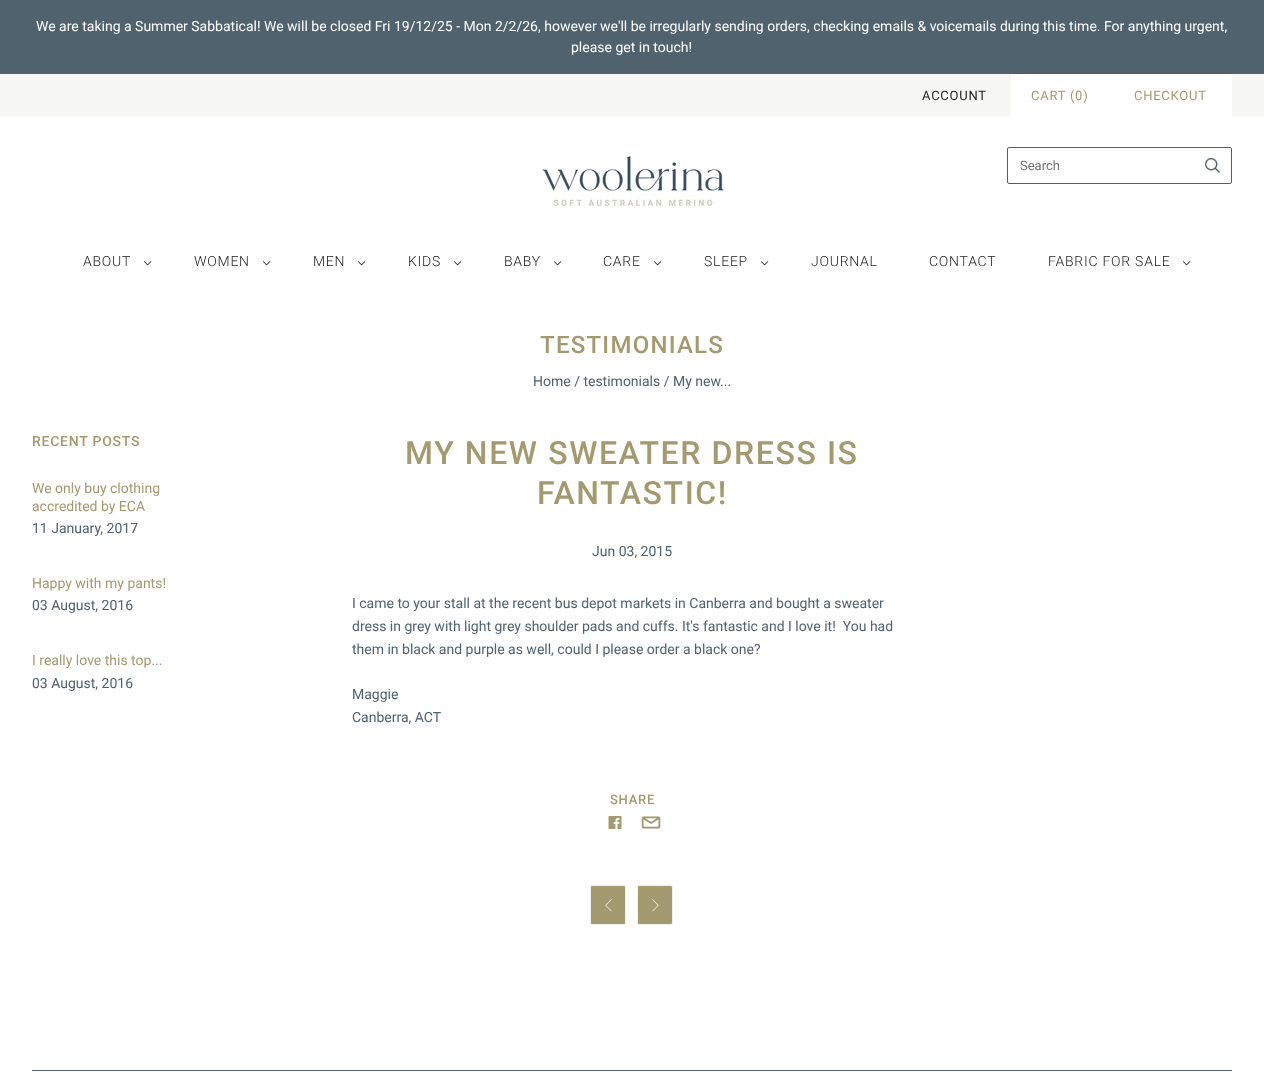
<svg xmlns="http://www.w3.org/2000/svg" width="1264" height="1080">
<style>
.a{font:14px Roboto;fill:#fff}
.b{font:13px Roboto;letter-spacing:0.75px;fill:#242424}
.c{font:13px Roboto;letter-spacing:0.75px;fill:#a49a70}
.d{font:13px Roboto;fill:#757575}
.e{font:300 14px Roboto;letter-spacing:0.75px;fill:#242424}
.f{font:500 24px Roboto;letter-spacing:1.25px;fill:#a49a70}
.g{font:14px Roboto;fill:#51626f}
.h{font:500 14px Roboto;letter-spacing:0.75px;fill:#a49a70}
.i{font:14px Roboto;fill:#a49a70}
.j{font:500 32px Roboto;letter-spacing:1.6px;fill:#a49a70}
.k{font:500 13px Roboto;letter-spacing:0.75px;fill:#a49a70}
</style>
<rect width="100%" height="100%" fill="#fff"/>
<path fill="#51626f" d="M0 0h1264v74H0z"/>
<path fill="#f7f8f4" d="M0 74h1264v43H0z"/>
<path fill="#fff" d="M1011 74h221v43H1011z"/>
<image href="1.png" x="542" y="155" width="182" height="56"/>
<rect fill="none" stroke="#51626f" x="1007.5" y="147.5" width="224" height="36" rx="1.5"/>
<image href="2.png" x="1205" y="158" width="15" height="15"/>
<image href="3.png" x="144" y="261" width="8" height="5"/>
<image href="3.png" x="263" y="261" width="8" height="5"/>
<image href="3.png" x="358" y="261" width="8" height="5"/>
<image href="3.png" x="454" y="261" width="8" height="5"/>
<image href="3.png" x="554" y="261" width="8" height="5"/>
<image href="3.png" x="654" y="261" width="8" height="5"/>
<image href="3.png" x="761" y="261" width="8" height="5"/>
<image href="3.png" x="1183" y="261" width="8" height="5"/>
<image href="4.png" x="608" y="816" width="14" height="13"/>
<image href="5.png" x="641" y="816" width="20" height="13"/>
<rect fill="#a49a70" stroke="#f0f0f0" x="590.5" y="885.5" width="35" height="39" rx="1.5"/>
<image href="6.png" x="605" y="899" width="7" height="13"/>
<rect fill="#a49a70" stroke="#f0f0f0" x="637.5" y="885.5" width="35" height="39" rx="1.5"/>
<image href="7.png" x="652" y="899" width="7" height="13"/>
<path fill="#51626f" d="M32 1070h1200v1H32z"/>
<text class="a" x="36" y="31">We are taking a Summer Sabbatical! We will be closed Fri 19/12/25 - Mon 2/2/26, however we'll be irregularly sending orders, checking emails &amp; voicemails during this time. For anything urgent,</text>
<text class="a" x="571" y="52">please get in touch!</text>
<text class="b" x="922" y="100">ACCOUNT</text>
<text class="c" x="1031" y="100">CART (0)</text>
<text class="c" x="1134" y="100">CHECKOUT</text>
<text class="d" x="1020" y="170">Search</text>
<text class="e" x="83" y="266">ABOUT</text>
<text class="e" x="194" y="266">WOMEN</text>
<text class="e" x="313" y="266">MEN</text>
<text class="e" x="408" y="266">KIDS</text>
<text class="e" x="504" y="266">BABY</text>
<text class="e" x="603" y="266">CARE</text>
<text class="e" x="704" y="266">SLEEP</text>
<text class="e" x="811" y="266">JOURNAL</text>
<text class="e" x="929" y="266">CONTACT</text>
<text class="e" x="1048" y="266">FABRIC FOR SALE</text>
<text class="f" x="540" y="353">TESTIMONIALS</text>
<text class="g" x="533" y="386">Home / testimonials / My new...</text>
<text class="h" x="32" y="446">RECENT POSTS</text>
<text class="i" x="32" y="493">We only buy clothing</text>
<text class="i" x="32" y="511">accredited by ECA</text>
<text class="g" x="32" y="533">11 January, 2017</text>
<text class="i" x="32" y="588">Happy with my pants!</text>
<text class="g" x="32" y="610">03 August, 2016</text>
<text class="i" x="32" y="665">I really love this top...</text>
<text class="g" x="32" y="688">03 August, 2016</text>
<text class="j" x="405" y="464">MY NEW SWEATER DRESS IS</text>
<text class="j" x="537" y="504">FANTASTIC!</text>
<text class="g" x="592" y="556">Jun 03, 2015</text>
<text class="g" x="352" y="608">I came to your stall at the recent bus depot markets in Canberra and bought a sweater</text>
<text class="g" xml:space="preserve" x="352" y="631">dress in grey with light grey shoulder pads and cuffs. It's fantastic and I love it!  You had</text>
<text class="g" x="352" y="654">them in black and purple as well, could I please order a black one?</text>
<text class="g" x="352" y="699">Maggie</text>
<text class="g" x="352" y="722">Canberra, ACT</text>
<text class="k" x="610" y="804">SHARE</text>
</svg>
